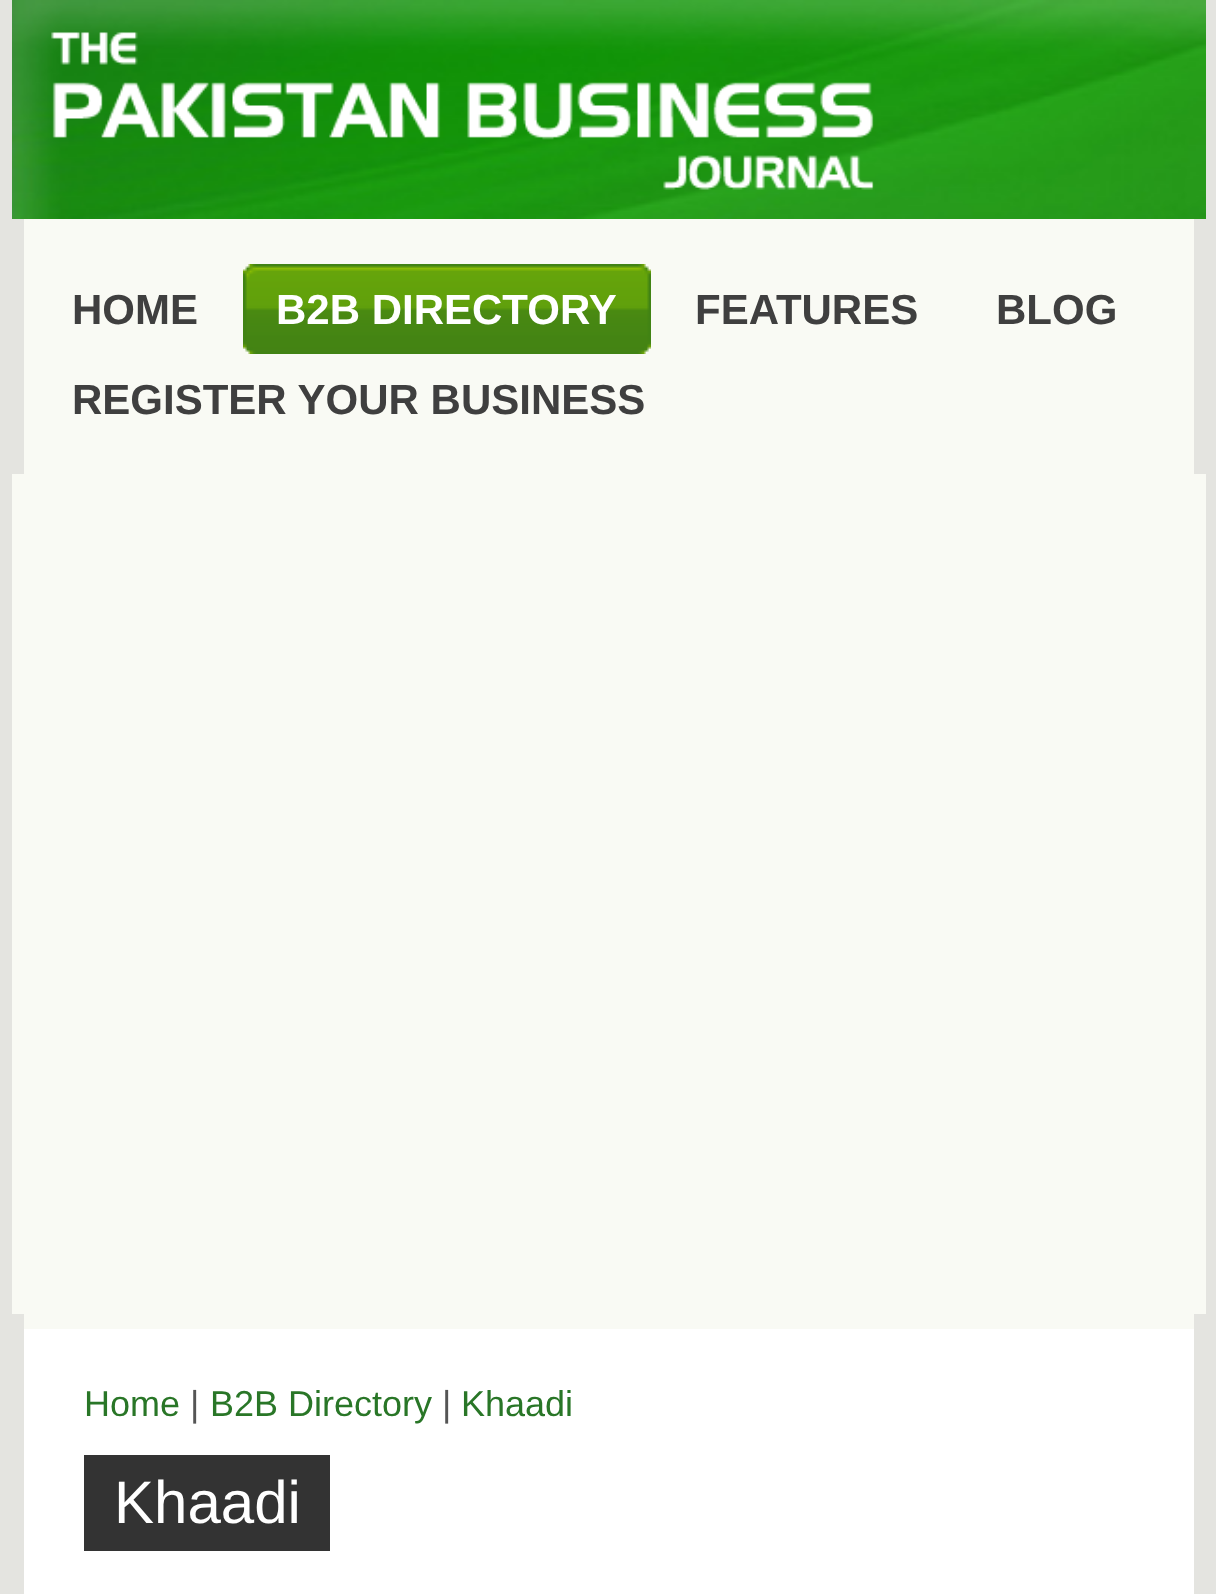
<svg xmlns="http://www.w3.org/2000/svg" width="1216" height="1594">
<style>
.a{font:bold 42px Liberation Sans;fill:#3f3f3f}
.b{font:bold 42px Liberation Sans;fill:#fff}
.c{font:36px Liberation Sans;fill:#297627}
.d{font:36px Liberation Sans;fill:#555}
.e{font:60px Liberation Sans;fill:#fff}
</style>
<rect width="100%" height="100%" fill="#e4e4e0"/>
<image href="1.png" x="12" y="0" width="1194" height="219"/>
<image href="2.png" x="51" y="32" width="823" height="158"/>
<path fill="#f9faf4" d="M24 219h1170v255H24z"/>
<image href="3.png" x="243" y="264" width="120" height="90"/>
<image href="4.png" x="363" y="264" width="288" height="90"/>
<path fill="#f9faf4" d="M12 474h1194v840H12z"/>
<path fill="#f9faf4" d="M24 1314h1170v15H24z"/>
<path fill="#fff" d="M24 1329h1170v265H24z"/>
<path fill="#333" d="M84 1455h246v96H84z"/>
<text class="a" x="72" y="324">HOME</text>
<text class="b" x="276" y="324">B2B DIRECTORY</text>
<text class="a" x="695" y="324">FEATURES</text>
<text class="a" x="996" y="324">BLOG</text>
<text class="a" x="72" y="414">REGISTER YOUR BUSINESS</text>
<text class="c" x="84" y="1416">Home</text>
<text class="d" x="190" y="1416">|</text>
<text class="c" x="210" y="1416">B2B Directory</text>
<text class="d" x="442" y="1416">|</text>
<text class="c" x="461" y="1416">Khaadi</text>
<text class="e" x="114" y="1523">Khaadi</text>
</svg>
